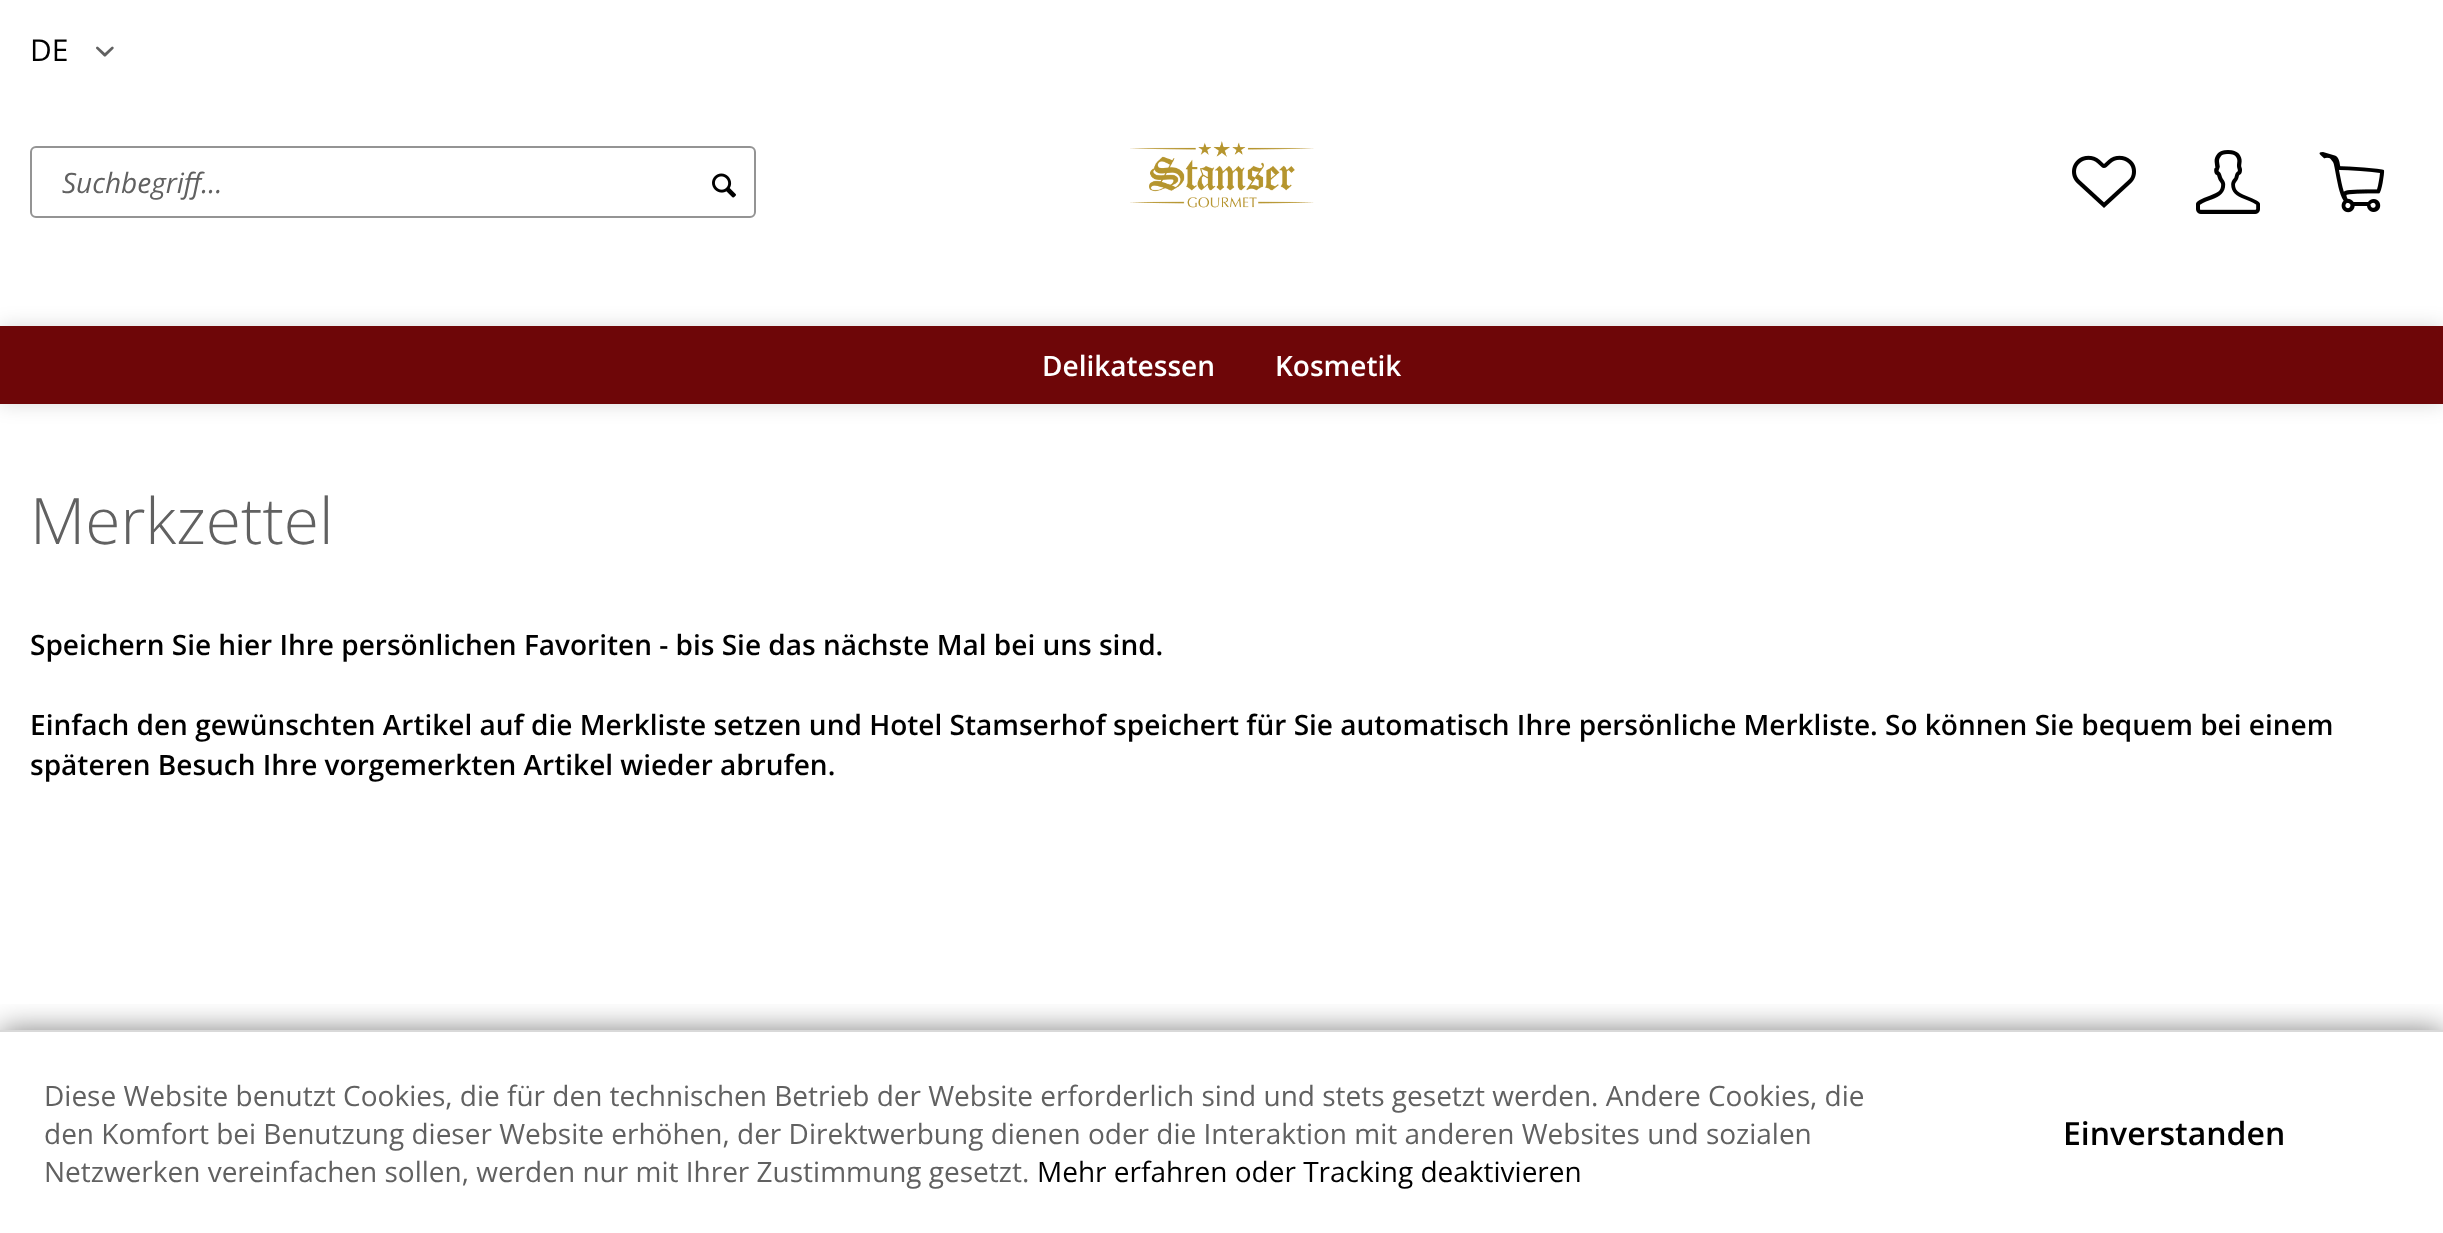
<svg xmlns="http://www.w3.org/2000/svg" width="2443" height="1233">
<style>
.a{font:30px Open Sans;fill:#000}
.b{font:italic 28px Open Sans;fill:#616161}
.c{font:600 28px Open Sans;fill:#fff}
.d{font:300 64px Open Sans;fill:#616161}
.e{font:600 28px Open Sans;fill:#000}
.f{font:28px Open Sans;fill:#616161}
.g{font:28px Open Sans;fill:#000}
.h{font:600 32px Open Sans;fill:#000}
</style>
<defs>
<clipPath id="clip1"><path d="M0 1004h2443v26H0z"/></clipPath>
</defs>
<rect width="100%" height="100%" fill="#fff"/>
<image href="1.png" x="96" y="46" width="18" height="11"/>
<rect fill="none" stroke="#949494" stroke-width="2" x="31" y="147" width="724" height="70" rx="5"/>
<image href="2.png" x="712" y="173" width="24" height="25"/>
<image href="3.png" x="1130" y="141" width="184" height="67"/>
<image href="4.png" x="2072" y="155" width="64" height="53"/>
<image href="5.png" x="2196" y="150" width="64" height="64"/>
<image href="6.png" x="2319" y="152" width="66" height="61"/>
<path fill="#00000026" filter="blur(10px)" d="M0 326h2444v78H0z"/>
<path fill="#6e0608" d="M0 326h2443v78H0z"/>
<g clip-path="url(#clip1)">
<path fill="#00000080" filter="blur(15px)" d="M0 1030h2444v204H0z"/>
</g>
<path fill="#d9d9d9" d="M0 1030h2443v2H0z"/>
<text class="a" x="30" y="61">DE</text>
<text class="b" x="62" y="193">Suchbegriff...</text>
<text class="c" x="1042" y="376">Delikatessen</text>
<text class="c" x="1275" y="376">Kosmetik</text>
<text class="d" x="30" y="544">Merkzettel</text>
<text class="e" x="30" y="655">Speichern Sie hier Ihre persönlichen Favoriten - bis Sie das nächste Mal bei uns sind.</text>
<text class="e" x="30" y="735">Einfach den gewünschten Artikel auf die Merkliste setzen und Hotel Stamserhof speichert für Sie automatisch Ihre persönliche Merkliste. So können Sie bequem bei einem</text>
<text class="e" x="30" y="775">späteren Besuch Ihre vorgemerkten Artikel wieder abrufen.</text>
<text class="f" x="44" y="1106">Diese Website benutzt Cookies, die für den technischen Betrieb der Website erforderlich sind und stets gesetzt werden. Andere Cookies, die</text>
<text class="f" x="44" y="1144">den Komfort bei Benutzung dieser Website erhöhen, der Direktwerbung dienen oder die Interaktion mit anderen Websites und sozialen</text>
<text class="f" x="44" y="1182">Netzwerken vereinfachen sollen, werden nur mit Ihrer Zustimmung gesetzt.</text>
<text class="g" x="1037" y="1182">Mehr erfahren oder Tracking deaktivieren</text>
<text class="h" x="2063" y="1145">Einverstanden</text>
</svg>
